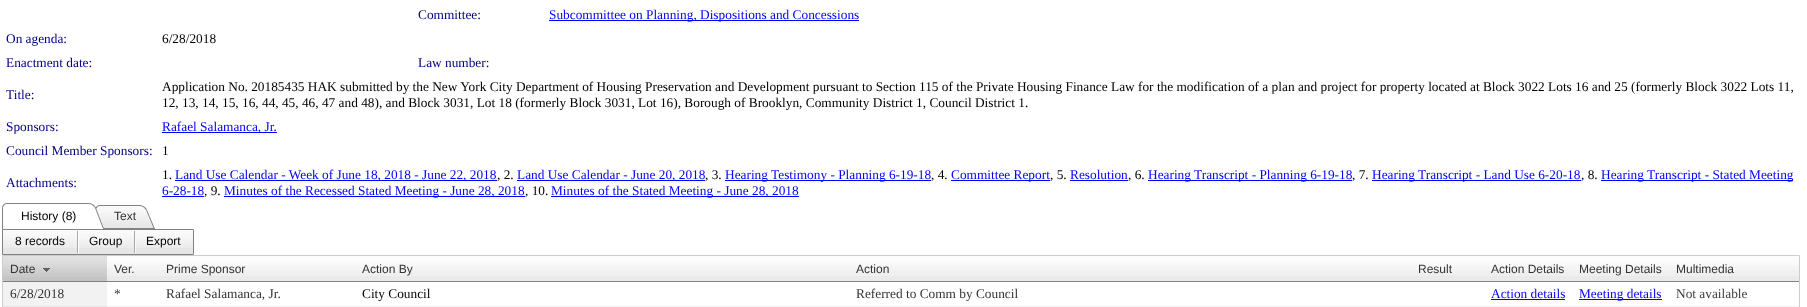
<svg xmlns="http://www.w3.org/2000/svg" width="1807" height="307">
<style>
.a{font:13.33px Liberation Serif;fill:#000080}
.b{font:13.33px Liberation Serif;fill:#00f}
.c{font:13.33px Liberation Serif;fill:#000}
.d{font:12px Liberation Sans;fill:#000}
.e{font:12px Liberation Sans;fill:#333}
.f{font:13.33px Liberation Serif;fill:#333}
.g{font:13.33px Liberation Serif;fill:#3d3d3d}
</style>
<rect width="100%" height="100%" fill="#fff"/>
<path fill="#00f" d="M549 20h310v1H549z"/>
<path fill="#00f" d="M162 132h115v1H162z"/>
<path fill="#00f" d="M175 180h322v1H175z"/>
<path fill="#00f" d="M517 180h188v1H517z"/>
<path fill="#00f" d="M725 180h206v1H725z"/>
<path fill="#00f" d="M951 180h99v1H951z"/>
<path fill="#00f" d="M1070 180h58v1H1070z"/>
<path fill="#00f" d="M1148 180h204v1H1148z"/>
<path fill="#00f" d="M1372 180h209v1H1372z"/>
<path fill="#00f" d="M1601 180h192v1H1601z"/>
<path fill="#00f" d="M162 196h42v1H162z"/>
<path fill="#00f" d="M224 196h301v1H224z"/>
<path fill="#00f" d="M551 196h248v1H551z"/>
<image href="1.png" x="2" y="203" width="9" height="26"/>
<image href="2.png" x="11" y="203" width="84" height="5"/>
<image href="3.png" x="95" y="205" width="9" height="24"/>
<image href="4.png" x="104" y="205" width="51" height="24"/>
<path fill="#e6e6e6" d="M3 248h190v6H3z"/>
<image href="5.png" x="3" y="230" width="190" height="18"/>
<path fill="none" stroke="#828282" d="M2.5 229.5h191v25H2.5z"/>
<image href="6.png" x="77" y="231" width="2" height="22"/>
<image href="7.png" x="134" y="231" width="2" height="22"/>
<path fill="none" stroke="#ccc" d="M2.5 255.5h1797v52H2.5z"/>
<path fill="#c4c4c4" d="M3 277h104v4H3z"/>
<image href="8.png" x="3" y="256" width="104" height="21"/>
<path fill="#828282" d="M3 281h1796v1H3z"/>
<image href="9.png" x="43" y="268" width="7" height="4"/>
<path fill="#eaeaea" d="M107 276h1692v5H107z"/>
<image href="10.png" x="107" y="256" width="52" height="20"/>
<image href="11.png" x="159" y="256" width="196" height="20"/>
<image href="12.png" x="355" y="256" width="494" height="20"/>
<image href="13.png" x="849" y="256" width="562" height="20"/>
<image href="14.png" x="1411" y="256" width="73" height="20"/>
<image href="15.png" x="1484" y="256" width="88" height="20"/>
<image href="16.png" x="1572" y="256" width="97" height="20"/>
<image href="17.png" x="1669" y="256" width="130" height="20"/>
<path fill="#f2f2f2" d="M3 282h104v24H3z"/>
<path fill="#00f" d="M1491 299h74v1H1491z"/>
<path fill="#00f" d="M1579 299h83v1H1579z"/>
<path fill="#f2f2f2" d="M107 306h1692v1H107z"/>
<path fill="#e6e6e6" d="M3 306h104v1H3z"/>
<text class="a" x="418" y="19">Committee:</text>
<text class="b" x="549" y="19">Subcommittee on Planning, Dispositions and Concessions</text>
<text class="a" x="6" y="43">On agenda:</text>
<text class="c" x="162" y="43">6/28/2018</text>
<text class="a" x="6" y="67">Enactment date:</text>
<text class="a" x="418" y="67">Law number:</text>
<text class="a" x="6" y="99">Title:</text>
<text class="c" x="162" y="91">Application No. 20185435 HAK submitted by the New York City Department of Housing Preservation and Development pursuant to Section 115 of the Private Housing Finance Law for the modification of a plan and project for property located at Block 3022 Lots 16 and 25 (formerly Block 3022 Lots 11,</text>
<text class="c" x="162" y="107">12, 13, 14, 15, 16, 44, 45, 46, 47 and 48), and Block 3031, Lot 18 (formerly Block 3031, Lot 16), Borough of Brooklyn, Community District 1, Council District 1.</text>
<text class="a" x="6" y="131">Sponsors:</text>
<text class="b" x="162" y="131">Rafael Salamanca, Jr.</text>
<text class="a" x="6" y="155">Council Member Sponsors:</text>
<text class="c" x="162" y="155">1</text>
<text class="a" x="6" y="187">Attachments:</text>
<text class="c" x="162" y="179">1.</text>
<text class="b" x="175" y="179">Land Use Calendar - Week of June 18, 2018 - June 22, 2018</text>
<text class="c" x="497" y="179">, 2.</text>
<text class="b" x="517" y="179">Land Use Calendar - June 20, 2018</text>
<text class="c" x="705" y="179">, 3.</text>
<text class="b" x="725" y="179">Hearing Testimony - Planning 6-19-18</text>
<text class="c" x="931" y="179">, 4.</text>
<text class="b" x="951" y="179">Committee Report</text>
<text class="c" x="1050" y="179">, 5.</text>
<text class="b" x="1070" y="179">Resolution</text>
<text class="c" x="1128" y="179">, 6.</text>
<text class="b" x="1148" y="179">Hearing Transcript - Planning 6-19-18</text>
<text class="c" x="1352" y="179">, 7.</text>
<text class="b" x="1372" y="179">Hearing Transcript - Land Use 6-20-18</text>
<text class="c" x="1581" y="179">, 8.</text>
<text class="b" x="1601" y="179">Hearing Transcript - Stated Meeting</text>
<text class="b" x="162" y="195">6-28-18</text>
<text class="c" x="204" y="195">, 9.</text>
<text class="b" x="224" y="195">Minutes of the Recessed Stated Meeting - June 28, 2018</text>
<text class="c" x="525" y="195">, 10.</text>
<text class="b" x="551" y="195">Minutes of the Stated Meeting - June 28, 2018</text>
<text class="d" x="21" y="220">History (8)</text>
<text class="e" x="114" y="220">Text</text>
<text class="d" x="15" y="245">8 records</text>
<text class="d" x="89" y="245">Group</text>
<text class="d" x="146" y="245">Export</text>
<text class="e" x="10" y="273">Date</text>
<text class="e" x="114" y="273">Ver.</text>
<text class="e" x="166" y="273">Prime Sponsor</text>
<text class="e" x="362" y="273">Action By</text>
<text class="e" x="856" y="273">Action</text>
<text class="e" x="1418" y="273">Result</text>
<text class="e" x="1491" y="273">Action Details</text>
<text class="e" x="1579" y="273">Meeting Details</text>
<text class="e" x="1676" y="273">Multimedia</text>
<text class="f" x="10" y="298">6/28/2018</text>
<text class="f" x="114" y="298">*</text>
<text class="f" x="166" y="298">Rafael Salamanca, Jr.</text>
<text class="c" x="362" y="298">City Council</text>
<text class="f" x="856" y="298">Referred to Comm by Council</text>
<text class="b" x="1491" y="298">Action details</text>
<text class="b" x="1579" y="298">Meeting details</text>
<text class="g" x="1676" y="298">Not available</text>
</svg>
